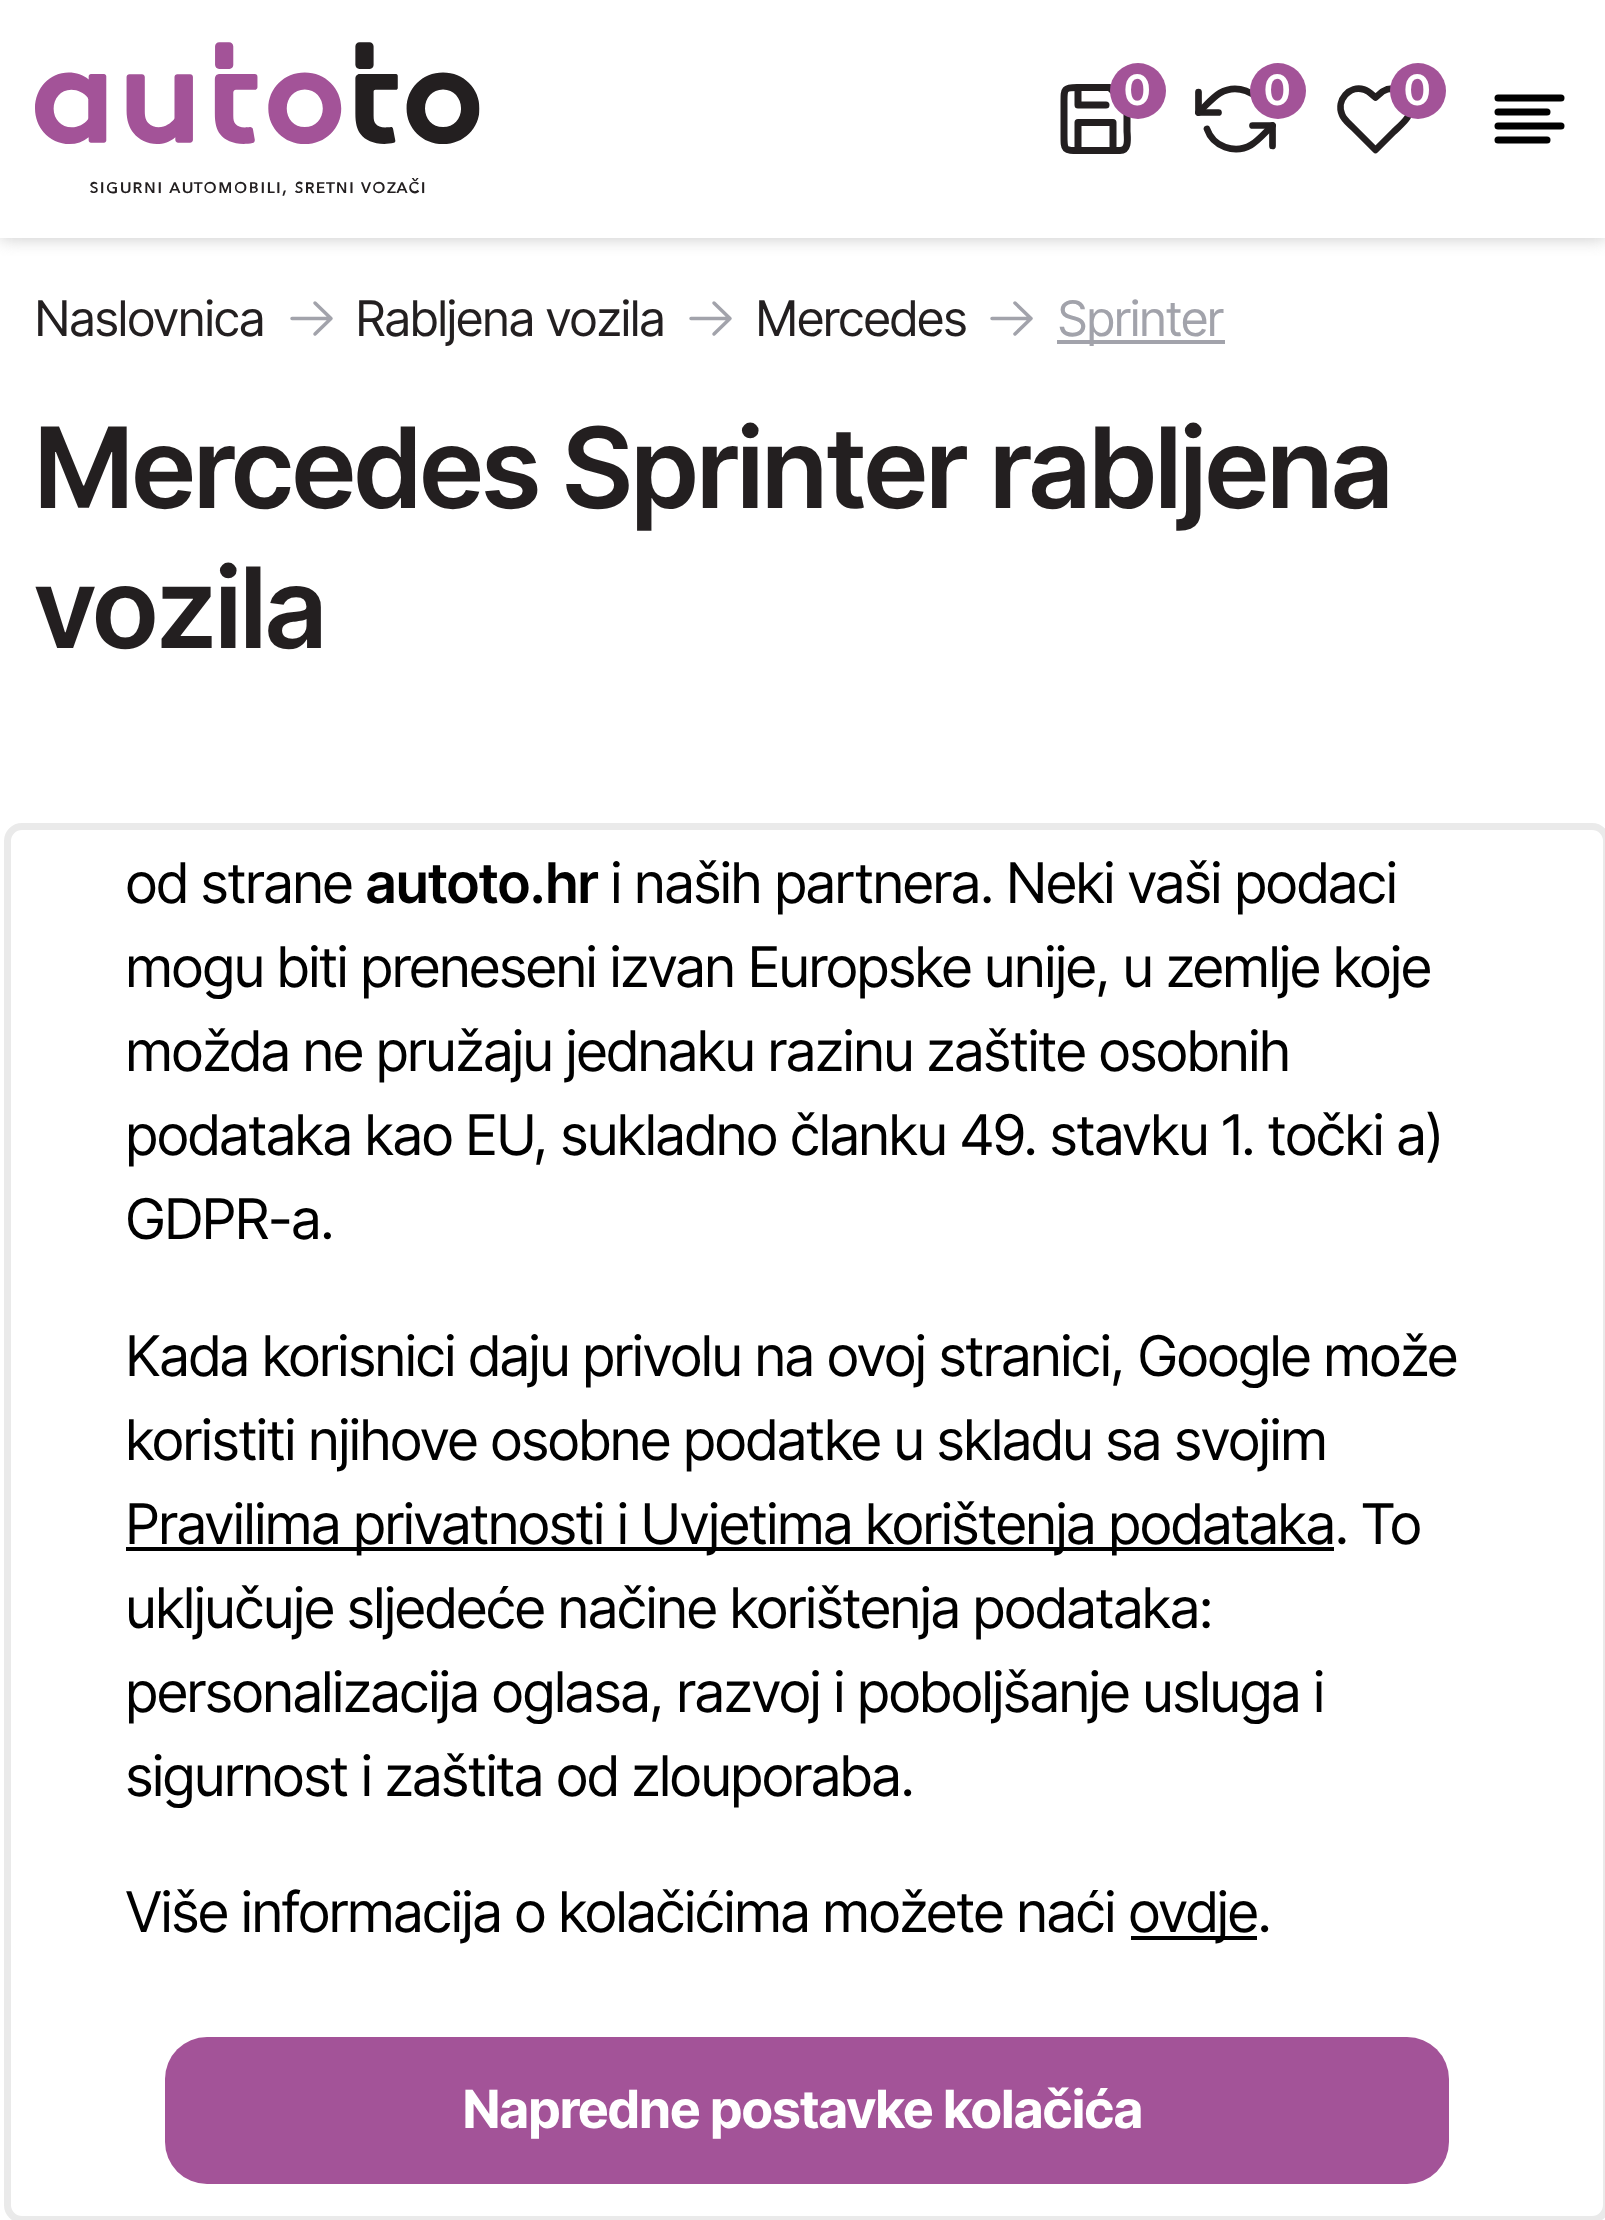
<svg xmlns="http://www.w3.org/2000/svg" width="1605" height="2220">
<style>
.a{font:600 42px Inter Tight;fill:#fff}
.b{font:49px Inter Tight;fill:#231f20}
.c{font:49px Inter Tight;fill:#a2a3ab}
.d{font:600 112px Inter Tight;fill:#231f20}
.e{font:56px Inter Tight;fill:#000}
.f{font:600 56px Inter Tight;fill:#000}
.g{font:bold 52.5px Inter Tight;fill:#fff}
</style>
<defs>
<clipPath id="clip1"><path d="M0 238h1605v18H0z"/></clipPath>
</defs>
<rect width="100%" height="100%" fill="#fff"/>
<g clip-path="url(#clip1)">
<path fill="#c7c7c7" filter="blur(9px)" d="M0 0h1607v238H0z"/>
</g>
<image href="1.png" x="35" y="42" width="445" height="154"/>
<path fill="none" stroke="#231f20" stroke-width="7" stroke-linecap="round" stroke-linejoin="round" d="M1120 150.5h-41c-15 0-15 0-15-15v-33c0-13.5-.5-15 13.5-15h32l17.5 17.5v25.5c0 5.5 3 20-7 20z"/>
<path fill="none" stroke="#231f20" stroke-width="7" stroke-linecap="round" stroke-linejoin="round" d="M1113 150.5v-28h-35v28"/>
<path fill="none" stroke="#231f20" stroke-width="7" stroke-linecap="round" stroke-linejoin="round" d="M1078 87.5v17.5h28"/>
<circle fill="#a35398" cx="1138" cy="91" r="28"/>
<path fill="none" stroke="#231f20" stroke-width="6.7" stroke-linecap="round" stroke-linejoin="round" d="M1198.5 92v20.5h20"/>
<path fill="none" stroke="#231f20" stroke-width="6.7" stroke-linecap="round" stroke-linejoin="round" d="M1272.5 146v-20.5h-20"/>
<path fill="none" stroke="#231f20" stroke-width="6.7" stroke-linecap="round" stroke-linejoin="round" d="M1264 109c-6-17.5-27.5-25.5-44-16c-7 4-15 13.5-21.5 19.5m74 13c-6.5 6-14.5 15.5-21.5 19.5c-16.5 9.5-38 1.5-44-16"/>
<circle fill="#a35398" cx="1278" cy="91" r="28"/>
<path fill="none" stroke="#231f20" stroke-width="6.7" stroke-linecap="round" stroke-linejoin="round" d="M1405 94c-5.5-6-15-7-22.5-2.5l-7 6c-3.5-3-6.5-6.5-11.5-8c-14.5-4.5-28 10.5-22 25c2 5.5 7.5 9.5 11.5 13.5l22 22l17.5-17.5c8-8 20-16 17.5-29c-1-3.5-2.5-7-5.5-9.5z"/>
<circle fill="#a35398" cx="1418" cy="91" r="28"/>
<path fill="none" stroke="#000" stroke-width="7" stroke-linecap="round" stroke-linejoin="round" d="M1547 112h-49"/>
<path fill="none" stroke="#000" stroke-width="7" stroke-linecap="round" stroke-linejoin="round" d="M1561 98h-63"/>
<path fill="none" stroke="#000" stroke-width="7" stroke-linecap="round" stroke-linejoin="round" d="M1561 126h-63"/>
<path fill="none" stroke="#000" stroke-width="7" stroke-linecap="round" stroke-linejoin="round" d="M1547 140h-49"/>
<path fill="none" stroke="#a2a3ab" stroke-width="3.5" stroke-linecap="round" stroke-linejoin="round" d="M292 318.5h39m-16-15.5l16 15.5l-16 15.5"/>
<path fill="none" stroke="#a2a3ab" stroke-width="3.5" stroke-linecap="round" stroke-linejoin="round" d="M691 318.5h39m-16-15.5l16 15.5l-16 15.5"/>
<path fill="none" stroke="#a2a3ab" stroke-width="3.5" stroke-linecap="round" stroke-linejoin="round" d="M992 318.5h39m-16-15.5l16 15.5l-16 15.5"/>
<path fill="#a2a3ab" d="M1057 340h168v4H1057z"/>
<rect fill="none" stroke="#eaeaea" stroke-width="7" x="7.5" y="826.5" width="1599" height="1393" rx="14.5"/>
<path fill="#000" d="M126 1547h1208v4H126z"/>
<path fill="#000" d="M1131 1936h126v4H1131z"/>
<rect fill="#a35398" x="165" y="2037" width="1284" height="147" rx="42"/>
<text class="a" x="1124" y="105">0</text>
<text class="a" x="1264" y="105">0</text>
<text class="a" x="1404" y="105">0</text>
<text class="b" x="35" y="336">Naslovnica</text>
<text class="b" x="356" y="336">Rabljena vozila</text>
<text class="b" x="756" y="336">Mercedes</text>
<text class="c" x="1058" y="336">Sprinter</text>
<text class="d" x="35" y="508">Mercedes Sprinter rabljena</text>
<text class="d" x="35" y="648">vozila</text>
<text class="e" x="126" y="903">od strane</text>
<text class="f" x="366" y="903">autoto.hr</text>
<text class="e" x="611" y="903">i naših partnera. Neki vaši podaci</text>
<text class="e" x="126" y="987">mogu biti preneseni izvan Europske unije, u zemlje koje</text>
<text class="e" x="126" y="1071">možda ne pružaju jednaku razinu zaštite osobnih</text>
<text class="e" x="126" y="1155">podataka kao EU, sukladno članku 49. stavku 1. točki a)</text>
<text class="e" x="126" y="1239">GDPR-a.</text>
<text class="e" x="126" y="1376">Kada korisnici daju privolu na ovoj stranici, Google može</text>
<text class="e" x="126" y="1460">koristiti njihove osobne podatke u skladu sa svojim</text>
<text class="e" x="126" y="1544">Pravilima privatnosti i Uvjetima korištenja podataka. To</text>
<text class="e" x="126" y="1628">uključuje sljedeće načine korištenja podataka:</text>
<text class="e" x="126" y="1712">personalizacija oglasa, razvoj i poboljšanje usluga i</text>
<text class="e" x="126" y="1796">sigurnost i zaštita od zlouporaba.</text>
<text class="e" x="126" y="1932">Više informacija o kolačićima možete naći</text>
<text class="e" x="1129" y="1932">ovdje.</text>
<text class="g" x="463" y="2128">Napredne postavke kolačića</text>
</svg>
